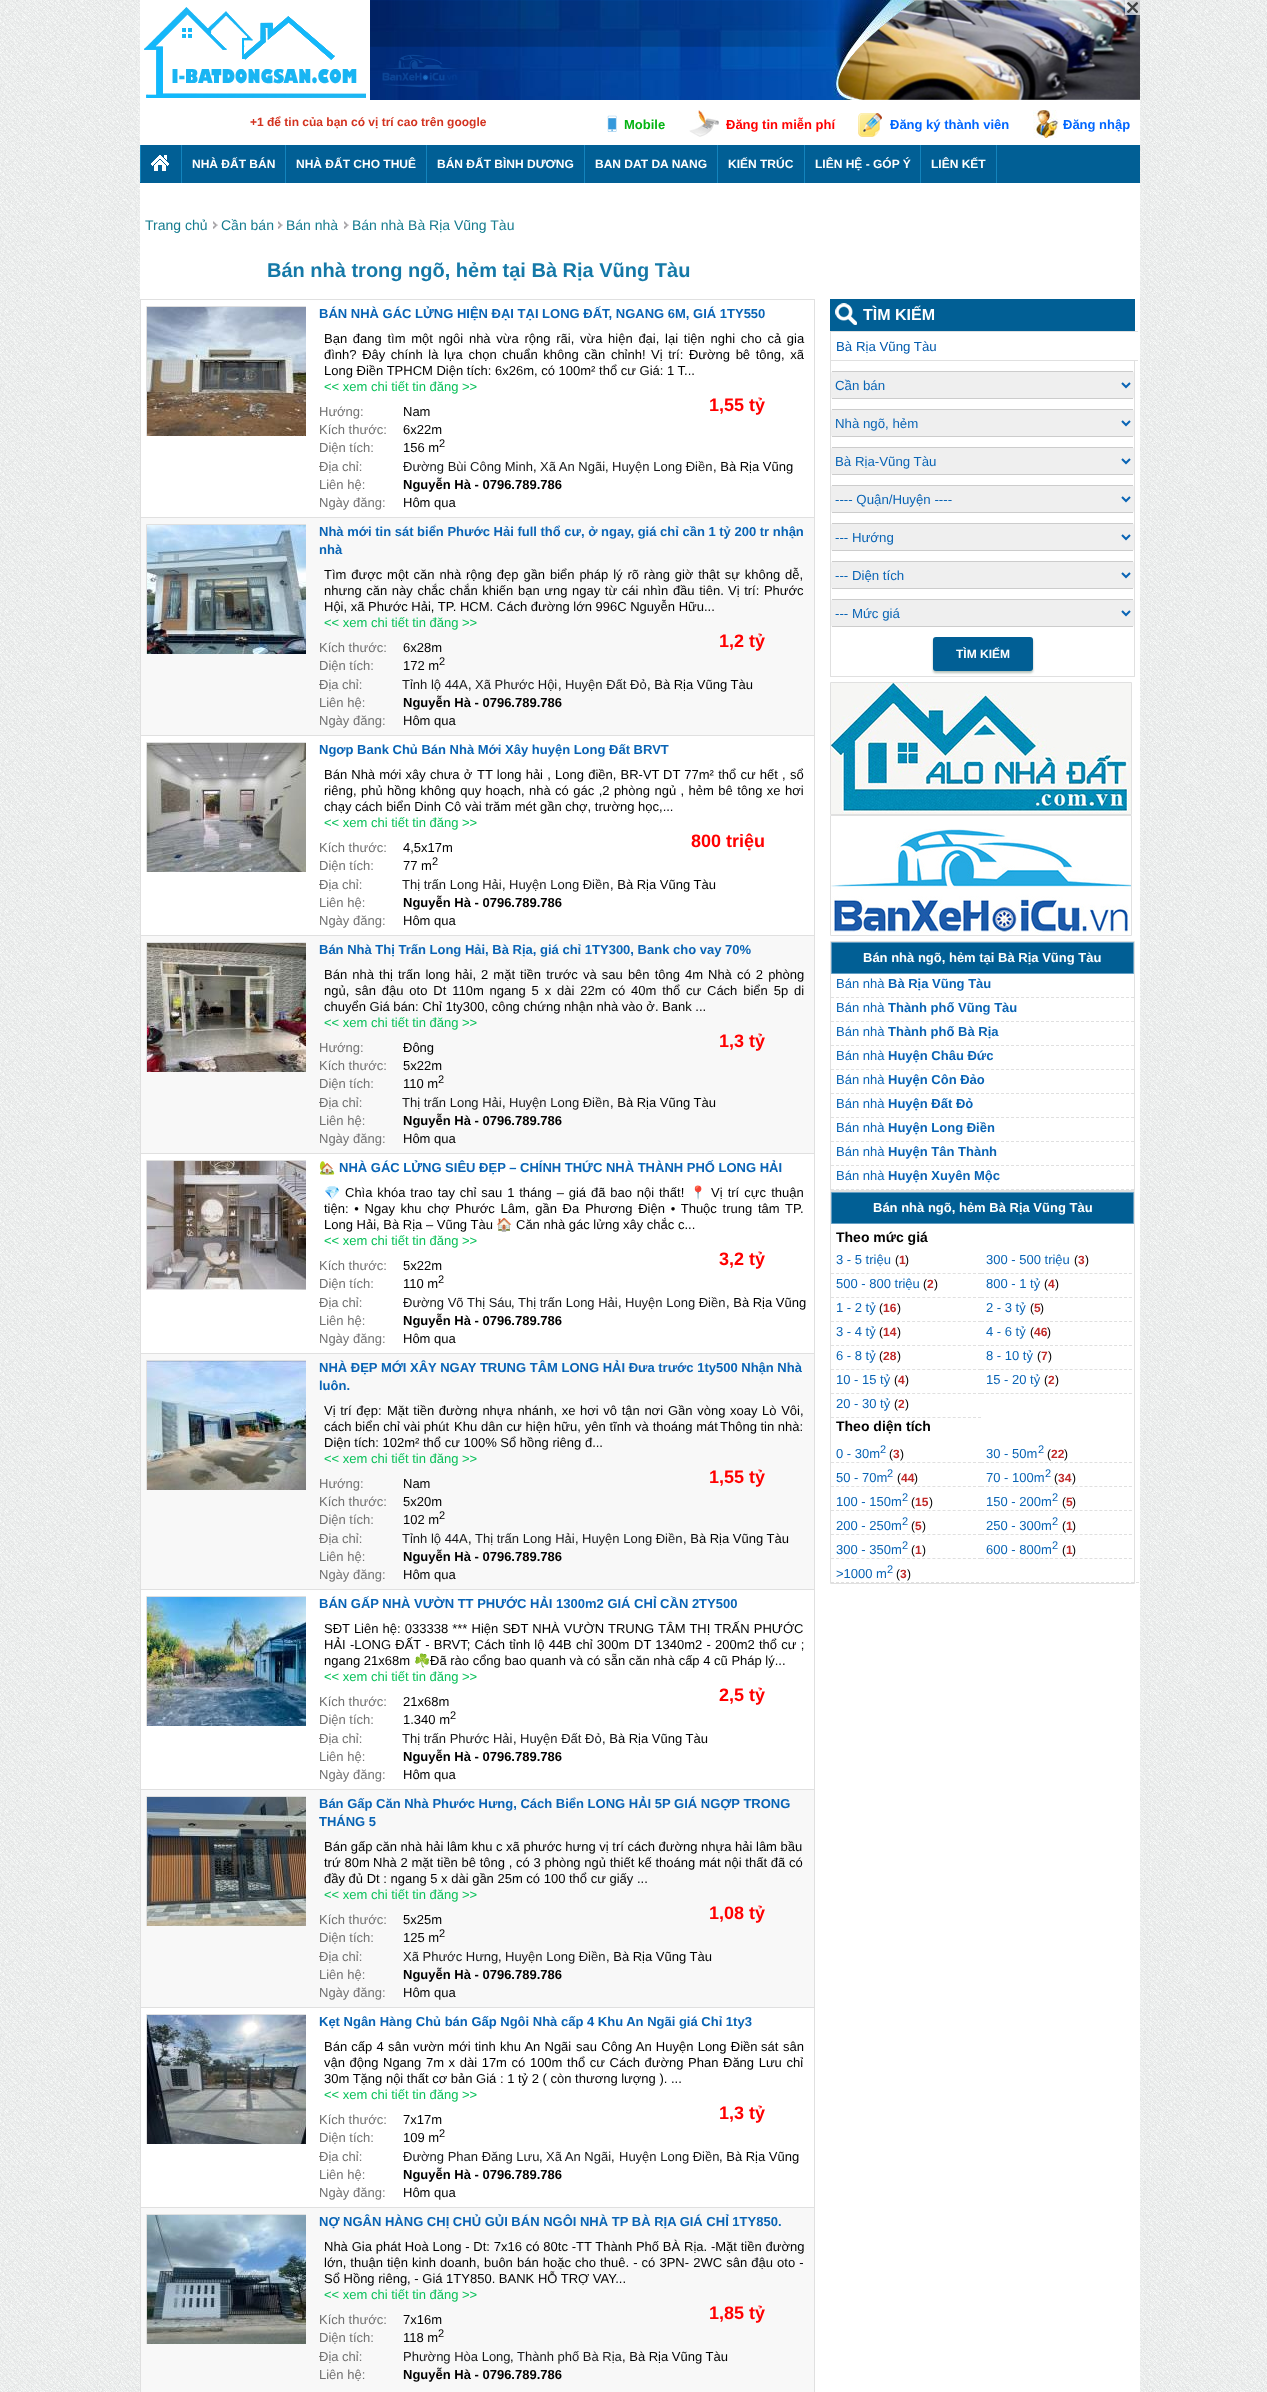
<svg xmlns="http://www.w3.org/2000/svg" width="1267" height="2392">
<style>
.a{font:bold 12px Liberation Sans;fill:#d33320}
.b{font:bold 13px Liberation Sans;fill:#05b413}
.c{font:bold 13px Liberation Sans;fill:#f00}
.d{font:bold 13px Liberation Sans;fill:#06f}
.e{font:bold 12px Liberation Sans;fill:#fff}
.f{font:14px Liberation Sans;fill:#157b8f}
.g{font:bold 20px Liberation Sans;fill:#1579a8}
.h{font:bold 13px Liberation Sans;fill:#0964b5}
.i{font:13px Liberation Sans;fill:#000}
.j{font:13px Liberation Sans;fill:#0bc15b}
.k{font:13px Liberation Sans;fill:#717171}
.l{font:bold 18px Liberation Sans;fill:#f00}
.m{font:11px Liberation Sans;fill:#000}
.n{font:13px Liberation Sans;fill:#171819}
.o{font:bold 13px Liberation Sans;fill:#000}
.p{font:bold 13px Noto Color Emoji;fill:#0964b5}
.q{font:13px Noto Color Emoji;fill:#000}
.r{font:bold 16px Liberation Sans;fill:#fff}
.s{font:13.25px Liberation Sans;fill:#005aad}
.t{font:13.25px Liberation Sans;fill:#0964b5}
.u{font:bold 13px Liberation Sans;fill:#fff}
.v{font:13px Liberation Sans;fill:#0964b5}
.w{font:bold 14px Liberation Sans;fill:#000}
.x{font:12px Liberation Sans;fill:#000}
.y{font:bold 12px Liberation Sans;fill:#c02929}
.z{font:11px Liberation Sans;fill:#0964b5}
</style>
<defs>
<clipPath id="clip1"><path d="M146 306h160v130H146z"/></clipPath>
<clipPath id="clip2"><path d="M146 524h160v130H146z"/></clipPath>
<clipPath id="clip3"><path d="M146 742h160v130H146z"/></clipPath>
<clipPath id="clip4"><path d="M146 942h160v130H146z"/></clipPath>
<clipPath id="clip5"><path d="M146 1160h160v130H146z"/></clipPath>
<clipPath id="clip6"><path d="M146 1360h160v130H146z"/></clipPath>
<clipPath id="clip7"><path d="M146 1596h160v130H146z"/></clipPath>
<clipPath id="clip8"><path d="M146 1796h160v130H146z"/></clipPath>
<clipPath id="clip9"><path d="M146 2014h160v130H146z"/></clipPath>
<clipPath id="clip10"><path d="M146 2214h160v130H146z"/></clipPath>
</defs>
<rect width="100%" height="100%" fill="#fff"/>
<image href="1.png" x="0" y="0" width="1267" height="2392"/>
<path fill="#fff" d="M140 0h1000v2392H140z"/>
<image href="2.png" x="144" y="7" width="222" height="91"/>
<image href="3.png" x="370" y="0" width="770" height="100"/>
<path fill="#ffffffb3" d="M1125 0h15v15H1125z"/>
<image href="4.png" x="1127" y="2" width="11" height="11"/>
<image href="5.png" x="607" y="115" width="10" height="17"/>
<image href="6.png" x="689" y="110" width="30" height="27"/>
<image href="7.png" x="858" y="113" width="24" height="24"/>
<image href="8.png" x="1033" y="110" width="26" height="28"/>
<path fill="#015f95" d="M140 145h1000v38H140z"/>
<path fill="#1384bd" d="M996 145h1v38H996z"/>
<path fill="#1384bd" d="M140 145h1v37H140z"/>
<image href="9.png" x="151" y="155" width="18" height="16"/>
<path fill="#1384bd" d="M181 145h1v38H181z"/>
<path fill="#1384bd" d="M285 145h1v38H285z"/>
<path fill="#1384bd" d="M426 145h1v38H426z"/>
<path fill="#1384bd" d="M584 145h1v38H584z"/>
<path fill="#1384bd" d="M717 145h1v38H717z"/>
<path fill="#1384bd" d="M804 145h1v38H804z"/>
<path fill="#1384bd" d="M920 145h1v38H920z"/>
<image href="10.png" x="213" y="221" width="5" height="8"/>
<image href="10.png" x="278" y="221" width="5" height="8"/>
<image href="10.png" x="344" y="221" width="5" height="8"/>
<path fill="#e0e0e0" d="M140 299h675v1H140z"/>
<path fill="#e0e0e0" d="M814 299h1v218H814z"/>
<path fill="#e0e0e0" d="M140 299h1v218H140z"/>
<g clip-path="url(#clip1)">
<path fill="none" stroke="#e0e0e0" d="M146.5 306.5h161v131H146.5z"/>
</g>
<image href="11.png" x="147" y="307" width="159" height="129"/>
<path fill="#f8f8f8" d="M141 518h673v217H141z"/>
<path fill="#e0e0e0" d="M140 517h675v1H140z"/>
<path fill="#e0e0e0" d="M814 517h1v218H814z"/>
<path fill="#e0e0e0" d="M140 517h1v218H140z"/>
<g clip-path="url(#clip2)">
<path fill="none" stroke="#e0e0e0" d="M146.5 524.5h161v131H146.5z"/>
</g>
<image href="12.png" x="147" y="525" width="159" height="129"/>
<path fill="#e0e0e0" d="M140 735h675v1H140z"/>
<path fill="#e0e0e0" d="M814 735h1v200H814z"/>
<path fill="#e0e0e0" d="M140 735h1v200H140z"/>
<g clip-path="url(#clip3)">
<path fill="none" stroke="#e0e0e0" d="M146.5 742.5h161v131H146.5z"/>
</g>
<image href="13.png" x="147" y="743" width="159" height="129"/>
<path fill="#f8f8f8" d="M141 936h673v217H141z"/>
<path fill="#e0e0e0" d="M140 935h675v1H140z"/>
<path fill="#e0e0e0" d="M814 935h1v218H814z"/>
<path fill="#e0e0e0" d="M140 935h1v218H140z"/>
<g clip-path="url(#clip4)">
<path fill="none" stroke="#e0e0e0" d="M146.5 942.5h161v131H146.5z"/>
</g>
<image href="14.png" x="147" y="943" width="159" height="129"/>
<path fill="#e0e0e0" d="M140 1153h675v1H140z"/>
<path fill="#e0e0e0" d="M814 1153h1v200H814z"/>
<path fill="#e0e0e0" d="M140 1153h1v200H140z"/>
<g clip-path="url(#clip5)">
<path fill="none" stroke="#e0e0e0" d="M146.5 1160.5h161v131H146.5z"/>
</g>
<image href="15.png" x="147" y="1161" width="159" height="129"/>
<path fill="#f8f8f8" d="M141 1354h673v235H141z"/>
<path fill="#e0e0e0" d="M140 1353h675v1H140z"/>
<path fill="#e0e0e0" d="M814 1353h1v236H814z"/>
<path fill="#e0e0e0" d="M140 1353h1v236H140z"/>
<g clip-path="url(#clip6)">
<path fill="none" stroke="#e0e0e0" d="M146.5 1360.5h161v131H146.5z"/>
</g>
<image href="16.png" x="147" y="1361" width="159" height="129"/>
<path fill="#e0e0e0" d="M140 1589h675v1H140z"/>
<path fill="#e0e0e0" d="M814 1589h1v200H814z"/>
<path fill="#e0e0e0" d="M140 1589h1v200H140z"/>
<g clip-path="url(#clip7)">
<path fill="none" stroke="#e0e0e0" d="M146.5 1596.5h161v131H146.5z"/>
</g>
<image href="17.png" x="147" y="1597" width="159" height="129"/>
<path fill="#f8f8f8" d="M141 1790h673v217H141z"/>
<path fill="#e0e0e0" d="M140 1789h675v1H140z"/>
<path fill="#e0e0e0" d="M814 1789h1v218H814z"/>
<path fill="#e0e0e0" d="M140 1789h1v218H140z"/>
<g clip-path="url(#clip8)">
<path fill="none" stroke="#e0e0e0" d="M146.5 1796.5h161v131H146.5z"/>
</g>
<image href="18.png" x="147" y="1797" width="159" height="129"/>
<path fill="#e0e0e0" d="M140 2007h675v1H140z"/>
<path fill="#e0e0e0" d="M814 2007h1v200H814z"/>
<path fill="#e0e0e0" d="M140 2007h1v200H140z"/>
<g clip-path="url(#clip9)">
<path fill="none" stroke="#e0e0e0" d="M146.5 2014.5h161v131H146.5z"/>
</g>
<image href="19.png" x="147" y="2015" width="159" height="129"/>
<path fill="#f8f8f8" d="M141 2208h673v184H141z"/>
<path fill="#e0e0e0" d="M140 2207h675v1H140z"/>
<path fill="#e0e0e0" d="M814 2207h1v185H814z"/>
<path fill="#e0e0e0" d="M140 2207h1v185H140z"/>
<g clip-path="url(#clip10)">
<path fill="none" stroke="#e0e0e0" d="M146.5 2214.5h161v131H146.5z"/>
</g>
<image href="20.png" x="147" y="2215" width="159" height="129"/>
<path fill="#015f95" d="M830 299h305v32H830z"/>
<image href="21.png" x="835" y="303" width="22" height="22"/>
<path fill="#e0e0e0" d="M1134 361h1v316H1134z"/>
<path fill="#e0e0e0" d="M830 676h305v1H830z"/>
<path fill="#e0e0e0" d="M830 331h1v346H830z"/>
<path fill="#e0e0e0" d="M831 331h307v1H831z"/>
<path fill="#e0e0e0" d="M831 360h307v1H831z"/>
<rect fill="#efefef" x="831" y="371" width="303" height="28" rx="2"/>
<path fill="#ccc" d="M832 371h301v1H832z"/>
<path fill="#ccc" d="M832 398h301v1H832z"/>
<path fill="none" stroke="#0964b5" stroke-width="2" d="M1122 383l4 4l4-4"/>
<rect fill="#efefef" x="831" y="409" width="303" height="28" rx="2"/>
<path fill="#ccc" d="M832 409h301v1H832z"/>
<path fill="#ccc" d="M832 436h301v1H832z"/>
<path fill="none" stroke="#0964b5" stroke-width="2" d="M1122 421l4 4l4-4"/>
<rect fill="#efefef" x="831" y="447" width="303" height="28" rx="2"/>
<path fill="#ccc" d="M832 447h301v1H832z"/>
<path fill="#ccc" d="M832 474h301v1H832z"/>
<path fill="none" stroke="#0964b5" stroke-width="2" d="M1122 459l4 4l4-4"/>
<rect fill="#efefef" x="831" y="485" width="303" height="28" rx="2"/>
<path fill="#ccc" d="M832 485h301v1H832z"/>
<path fill="#ccc" d="M832 512h301v1H832z"/>
<path fill="none" stroke="#0964b5" stroke-width="2" d="M1122 497l4 4l4-4"/>
<rect fill="#efefef" x="831" y="523" width="303" height="28" rx="2"/>
<path fill="#ccc" d="M832 523h301v1H832z"/>
<path fill="#ccc" d="M832 550h301v1H832z"/>
<path fill="none" stroke="#0964b5" stroke-width="2" d="M1122 535l4 4l4-4"/>
<rect fill="#efefef" x="831" y="561" width="303" height="28" rx="2"/>
<path fill="#ccc" d="M832 561h301v1H832z"/>
<path fill="#ccc" d="M832 588h301v1H832z"/>
<path fill="none" stroke="#0964b5" stroke-width="2" d="M1122 573l4 4l4-4"/>
<rect fill="#efefef" x="831" y="599" width="303" height="28" rx="2"/>
<path fill="#ccc" d="M832 599h301v1H832z"/>
<path fill="#ccc" d="M832 626h301v1H832z"/>
<path fill="none" stroke="#0964b5" stroke-width="2" d="M1122 611l4 4l4-4"/>
<rect fill="#0533164d" filter="blur(1px)" x="933" y="639" width="100" height="34" rx="3"/>
<rect fill="#015f95" x="933" y="637" width="100" height="34" rx="3"/>
<path fill="none" stroke="#e0e0e0" d="M830.5 682.5h301v132H830.5z"/>
<image href="22.png" x="831" y="683" width="300" height="131"/>
<path fill="none" stroke="#e0e0e0" d="M830.5 815.5h301v120H830.5z"/>
<image href="23.png" x="831" y="829" width="300" height="105"/>
<path fill="none" stroke="#e0e0e0" d="M830.5 941.5h304v249H830.5z"/>
<path fill="#015f95" stroke="#639ec4" d="M831.5 942.5h302v31H831.5z"/>
<path fill="none" stroke="#e0e0e0" stroke-dasharray="3 2" d="M831 997.5h303"/>
<path fill="none" stroke="#e0e0e0" stroke-dasharray="3 2" d="M831 1021.5h303"/>
<path fill="none" stroke="#e0e0e0" stroke-dasharray="3 2" d="M831 1045.5h303"/>
<path fill="none" stroke="#e0e0e0" stroke-dasharray="3 2" d="M831 1069.5h303"/>
<path fill="none" stroke="#e0e0e0" stroke-dasharray="3 2" d="M831 1093.5h303"/>
<path fill="none" stroke="#e0e0e0" stroke-dasharray="3 2" d="M831 1117.5h303"/>
<path fill="none" stroke="#e0e0e0" stroke-dasharray="3 2" d="M831 1141.5h303"/>
<path fill="none" stroke="#e0e0e0" stroke-dasharray="3 2" d="M831 1165.5h303"/>
<path fill="none" stroke="#e0e0e0" stroke-dasharray="3 2" d="M831 1189.5h303"/>
<path fill="none" stroke="#e0e0e0" d="M830.5 1191.5h304v392H830.5z"/>
<path fill="#015f95" stroke="#639ec4" d="M831.5 1192.5h302v31H831.5z"/>
<path fill="none" stroke="#e0e0e0" stroke-dasharray="3 2.07" d="M831 1273.5h150"/>
<path fill="none" stroke="#e0e0e0" stroke-dasharray="3 1.93" d="M981 1273.5h151"/>
<path fill="none" stroke="#e0e0e0" stroke-dasharray="3 2.07" d="M831 1297.5h150"/>
<path fill="none" stroke="#e0e0e0" stroke-dasharray="3 1.93" d="M981 1297.5h151"/>
<path fill="none" stroke="#e0e0e0" stroke-dasharray="3 2.07" d="M831 1321.5h150"/>
<path fill="none" stroke="#e0e0e0" stroke-dasharray="3 1.93" d="M981 1321.5h151"/>
<path fill="none" stroke="#e0e0e0" stroke-dasharray="3 2.07" d="M831 1345.5h150"/>
<path fill="none" stroke="#e0e0e0" stroke-dasharray="3 1.93" d="M981 1345.5h151"/>
<path fill="none" stroke="#e0e0e0" stroke-dasharray="3 2.07" d="M831 1369.5h150"/>
<path fill="none" stroke="#e0e0e0" stroke-dasharray="3 1.93" d="M981 1369.5h151"/>
<path fill="none" stroke="#e0e0e0" stroke-dasharray="3 2.07" d="M831 1393.5h150"/>
<path fill="none" stroke="#e0e0e0" stroke-dasharray="3 1.93" d="M981 1393.5h151"/>
<path fill="none" stroke="#e0e0e0" stroke-dasharray="3 2.07" d="M831 1417.5h150"/>
<path fill="none" stroke="#e0e0e0" stroke-dasharray="3 2.07" d="M831 1462.5h150"/>
<path fill="none" stroke="#e0e0e0" stroke-dasharray="3 1.93" d="M981 1462.5h151"/>
<path fill="none" stroke="#e0e0e0" stroke-dasharray="3 2.07" d="M831 1486.5h150"/>
<path fill="none" stroke="#e0e0e0" stroke-dasharray="3 1.93" d="M981 1486.5h151"/>
<path fill="none" stroke="#e0e0e0" stroke-dasharray="3 2.07" d="M831 1510.5h150"/>
<path fill="none" stroke="#e0e0e0" stroke-dasharray="3 1.93" d="M981 1510.5h151"/>
<path fill="none" stroke="#e0e0e0" stroke-dasharray="3 2.07" d="M831 1534.5h150"/>
<path fill="none" stroke="#e0e0e0" stroke-dasharray="3 1.93" d="M981 1534.5h151"/>
<path fill="none" stroke="#e0e0e0" stroke-dasharray="3 2.07" d="M831 1558.5h150"/>
<path fill="none" stroke="#e0e0e0" stroke-dasharray="3 1.93" d="M981 1558.5h151"/>
<path fill="none" stroke="#e0e0e0" stroke-dasharray="3 2" d="M831 1582.5h308"/>
<text class="a" x="250" y="126">+1 để tin của bạn có vị trí cao trên google</text>
<text class="b" x="624" y="129">Mobile</text>
<text class="c" x="726" y="129">Đăng tin miễn phí</text>
<text class="d" x="890" y="129">Đăng ký thành viên</text>
<text class="d" x="1063" y="129">Đăng nhập</text>
<text class="e" x="192" y="168">NHÀ ĐẤT BÁN</text>
<text class="e" x="296" y="168">NHÀ ĐẤT CHO THUÊ</text>
<text class="e" x="437" y="168">BÁN ĐẤT BÌNH DƯƠNG</text>
<text class="e" x="595" y="168">BAN DAT DA NANG</text>
<text class="e" x="728" y="168">KIẾN TRÚC</text>
<text class="e" x="815" y="168">LIÊN HỆ - GÓP Ý</text>
<text class="e" x="931" y="168">LIÊN KẾT</text>
<text class="f" x="145" y="230">Trang chủ</text>
<text class="f" x="221" y="230">Cần bán</text>
<text class="f" x="286" y="230">Bán nhà</text>
<text class="f" x="352" y="230">Bán nhà Bà Rịa Vũng Tàu</text>
<text class="g" x="267" y="277">Bán nhà trong ngõ, hẻm tại Bà Rịa Vũng Tàu</text>
<text class="h" x="319" y="318">BÁN NHÀ GÁC LỬNG HIỆN ĐẠI TẠI LONG ĐẤT, NGANG 6M, GIÁ 1TY550</text>
<text class="i" x="324" y="343" word-spacing="2.1">Bạn đang tìm một ngôi nhà vừa rộng rãi, vừa hiện đại, lại tiện nghi cho cả gia</text>
<text class="i" x="324" y="359" word-spacing="2">đình? Đây chính là lựa chọn chuẩn không cần chỉnh!</text>
<text class="i" x="651" y="359" word-spacing="2">Vị trí: Đường bê tông, xã</text>
<text class="i" x="324" y="375">Long Điền TPHCM Diện tích: 6x26m, có 100m² thổ cư Giá: 1 T...</text>
<text class="j" x="324" y="391">&lt;&lt; xem chi tiết tin đăng &gt;&gt;</text>
<text class="k" x="319" y="416">Hướng:</text>
<text class="i" x="403" y="416">Nam</text>
<text class="l" x="709" y="411">1,55 tỷ</text>
<text class="k" x="319" y="434">Kích thước:</text>
<text class="i" x="403" y="434">6x22m</text>
<text class="k" x="319" y="452">Diện tích:</text>
<text class="i" x="403" y="452">156 m</text>
<text class="m" x="439" y="447">2</text>
<text class="k" x="319" y="471">Địa chỉ:</text>
<text class="n" x="403" y="471">Đường Bùi Công Minh</text>
<text class="i" x="533" y="471">,</text>
<text class="n" x="540" y="471">Xã An Ngãi</text>
<text class="i" x="605" y="471">,</text>
<text class="n" x="612" y="471">Huyện Long Điền</text>
<text class="i" x="713" y="471">, Bà Rịa Vũng</text>
<text class="k" x="319" y="489">Liên hệ:</text>
<text class="o" x="403" y="489">Nguyễn Hà - 0796.789.786</text>
<text class="k" x="319" y="507">Ngày đăng:</text>
<text class="i" x="403" y="507">Hôm qua</text>
<text class="h" x="319" y="536">Nhà mới tin sát biển Phước Hải full thổ cư, ở ngay, giá chỉ cần 1 tỷ 200 tr nhận</text>
<text class="h" x="319" y="554">nhà</text>
<text class="i" x="324" y="579" word-spacing="1.25">Tìm được một căn nhà rộng đẹp gần biển pháp lý rõ ràng giờ thật sự không dễ,</text>
<text class="i" x="324" y="595" word-spacing="1">nhưng căn này chắc chắn khiến bạn ưng ngay từ cái nhìn đầu tiên.</text>
<text class="i" x="728" y="595" word-spacing="1">Vị trí: Phước</text>
<text class="i" x="324" y="611">Hội, xã Phước Hải, TP. HCM. Cách đường lớn 996C Nguyễn Hữu...</text>
<text class="j" x="324" y="627">&lt;&lt; xem chi tiết tin đăng &gt;&gt;</text>
<text class="k" x="319" y="652">Kích thước:</text>
<text class="i" x="403" y="652">6x28m</text>
<text class="l" x="719" y="647">1,2 tỷ</text>
<text class="k" x="319" y="670">Diện tích:</text>
<text class="i" x="403" y="670">172 m</text>
<text class="m" x="439" y="665">2</text>
<text class="k" x="319" y="689">Địa chỉ:</text>
<text class="n" x="402" y="689">Tỉnh lộ 44A</text>
<text class="i" x="468" y="689">,</text>
<text class="n" x="475" y="689">Xã Phước Hội</text>
<text class="i" x="558" y="689">,</text>
<text class="n" x="565" y="689">Huyện Đất Đỏ</text>
<text class="i" x="647" y="689">, Bà Rịa Vũng Tàu</text>
<text class="k" x="319" y="707">Liên hệ:</text>
<text class="o" x="403" y="707">Nguyễn Hà - 0796.789.786</text>
<text class="k" x="319" y="725">Ngày đăng:</text>
<text class="i" x="403" y="725">Hôm qua</text>
<text class="h" x="319" y="754">Ngơp Bank Chủ Bán Nhà Mới Xây huyện Long Đất BRVT</text>
<text class="i" x="324" y="779" word-spacing="0.5">Bán Nhà mới xây chưa ở</text>
<text class="i" x="477" y="779" word-spacing="0.6">TT long hải , Long điền, BR-VT</text>
<text class="i" x="663" y="779" word-spacing="0.6">DT 77m² thổ cư hết , sổ</text>
<text class="i" x="324" y="795" word-spacing="0.8">riêng, phủ hồng không quy hoạch, nhà có gác ,2 phòng ngủ , hẻm bê tông xe hơi</text>
<text class="i" x="324" y="811">chạy cách biển Dinh Cô vài trăm mét gần chợ, trường học,...</text>
<text class="j" x="324" y="827">&lt;&lt; xem chi tiết tin đăng &gt;&gt;</text>
<text class="k" x="319" y="852">Kích thước:</text>
<text class="i" x="403" y="852">4,5x17m</text>
<text class="l" x="691" y="847">800 triệu</text>
<text class="k" x="319" y="870">Diện tích:</text>
<text class="i" x="403" y="870">77 m</text>
<text class="m" x="432" y="865">2</text>
<text class="k" x="319" y="889">Địa chỉ:</text>
<text class="n" x="402" y="889">Thị trấn Long Hải</text>
<text class="i" x="502" y="889">,</text>
<text class="n" x="509" y="889">Huyện Long Điền</text>
<text class="i" x="610" y="889">, Bà Rịa Vũng Tàu</text>
<text class="k" x="319" y="907">Liên hệ:</text>
<text class="o" x="403" y="907">Nguyễn Hà - 0796.789.786</text>
<text class="k" x="319" y="925">Ngày đăng:</text>
<text class="i" x="403" y="925">Hôm qua</text>
<text class="h" x="319" y="954">Bán Nhà Thị Trấn Long Hải, Bà Rịa, giá chỉ 1TY300, Bank cho vay 70%</text>
<text class="i" x="324" y="979" word-spacing="1.5">Bán nhà thị trấn long hải,</text>
<text class="i" x="481" y="979" word-spacing="1.5">2 mặt tiền trước và sau bên tông 4m</text>
<text class="i" x="708" y="979" word-spacing="1.5">Nhà có 2 phòng</text>
<text class="i" x="324" y="995">ngủ,</text>
<text class="i" x="355" y="995" word-spacing="2.25">sân đậu oto Dt 110m ngang 5 x dài 22m có 40m thổ cư</text>
<text class="i" x="707" y="995" word-spacing="2.25">Cách biển 5p di</text>
<text class="i" x="324" y="1011">chuyển Giá bán: Chỉ 1ty300, công chứng nhận nhà vào ở. Bank ...</text>
<text class="j" x="324" y="1027">&lt;&lt; xem chi tiết tin đăng &gt;&gt;</text>
<text class="k" x="319" y="1052">Hướng:</text>
<text class="i" x="403" y="1052">Đông</text>
<text class="l" x="719" y="1047">1,3 tỷ</text>
<text class="k" x="319" y="1070">Kích thước:</text>
<text class="i" x="403" y="1070">5x22m</text>
<text class="k" x="319" y="1088">Diện tích:</text>
<text class="i" x="403" y="1088">110 m</text>
<text class="m" x="438" y="1083">2</text>
<text class="k" x="319" y="1107">Địa chỉ:</text>
<text class="n" x="402" y="1107">Thị trấn Long Hải</text>
<text class="i" x="502" y="1107">,</text>
<text class="n" x="509" y="1107">Huyện Long Điền</text>
<text class="i" x="610" y="1107">, Bà Rịa Vũng Tàu</text>
<text class="k" x="319" y="1125">Liên hệ:</text>
<text class="o" x="403" y="1125">Nguyễn Hà - 0796.789.786</text>
<text class="k" x="319" y="1143">Ngày đăng:</text>
<text class="i" x="403" y="1143">Hôm qua</text>
<text class="p" x="319" y="1172">🏡</text>
<text class="h" x="339" y="1172">NHÀ GÁC LỬNG SIÊU ĐẸP – CHÍNH THỨC NHÀ THÀNH PHỐ LONG HẢI</text>
<text class="q" x="324" y="1197">💎</text>
<text class="i" x="345" y="1197" word-spacing="1.25">Chìa khóa trao tay chỉ sau 1 tháng – giá đã bao nội thất!</text>
<text class="q" x="690" y="1197">📍</text>
<text class="i" x="711" y="1197" word-spacing="1.5">Vị trí cực thuận</text>
<text class="i" x="324" y="1213" word-spacing="2.1">tiện: • Ngay khu chợ Phước Lâm, gần Đa Phương Điện • Thuộc trung tâm TP.</text>
<text class="i" x="324" y="1229">Long Hải, Bà Rịa – Vũng Tàu</text>
<text class="q" x="496" y="1229">🏠</text>
<text class="i" x="516" y="1229">Căn nhà gác lửng xây chắc c...</text>
<text class="j" x="324" y="1245">&lt;&lt; xem chi tiết tin đăng &gt;&gt;</text>
<text class="k" x="319" y="1270">Kích thước:</text>
<text class="i" x="403" y="1270">5x22m</text>
<text class="l" x="719" y="1265">3,2 tỷ</text>
<text class="k" x="319" y="1288">Diện tích:</text>
<text class="i" x="403" y="1288">110 m</text>
<text class="m" x="438" y="1283">2</text>
<text class="k" x="319" y="1307">Địa chỉ:</text>
<text class="n" x="403" y="1307">Đường Võ Thị Sáu</text>
<text class="i" x="511" y="1307">,</text>
<text class="n" x="518" y="1307">Thị trấn Long Hải</text>
<text class="i" x="618" y="1307">,</text>
<text class="n" x="625" y="1307">Huyện Long Điền</text>
<text class="i" x="726" y="1307">, Bà Rịa Vũng</text>
<text class="k" x="319" y="1325">Liên hệ:</text>
<text class="o" x="403" y="1325">Nguyễn Hà - 0796.789.786</text>
<text class="k" x="319" y="1343">Ngày đăng:</text>
<text class="i" x="403" y="1343">Hôm qua</text>
<text class="h" x="319" y="1372">NHÀ ĐẸP MỚI XÂY NGAY TRUNG TÂM LONG HẢI Đưa trước 1ty500 Nhận Nhà</text>
<text class="h" x="319" y="1390">luôn.</text>
<text class="i" x="324" y="1415" word-spacing="1">Vị trí đẹp:</text>
<text class="i" x="387" y="1415" word-spacing="1">Mặt tiền đường nhựa nhánh, xe hơi vô tận nơi</text>
<text class="i" x="668" y="1415" word-spacing="1">Gần vòng xoay Lò Vôi,</text>
<text class="i" x="324" y="1431">cách biển chỉ vài phút</text>
<text class="i" x="454" y="1431" word-spacing="0.25">Khu dân cư hiện hữu, yên tĩnh và thoáng mát</text>
<text class="i" x="720" y="1431">Thông tin nhà:</text>
<text class="i" x="324" y="1447">Diện tích: 102m² thổ cư 100% Sổ hồng riêng đ...</text>
<text class="j" x="324" y="1463">&lt;&lt; xem chi tiết tin đăng &gt;&gt;</text>
<text class="k" x="319" y="1488">Hướng:</text>
<text class="i" x="403" y="1488">Nam</text>
<text class="l" x="709" y="1483">1,55 tỷ</text>
<text class="k" x="319" y="1506">Kích thước:</text>
<text class="i" x="403" y="1506">5x20m</text>
<text class="k" x="319" y="1524">Diện tích:</text>
<text class="i" x="403" y="1524">102 m</text>
<text class="m" x="439" y="1519">2</text>
<text class="k" x="319" y="1543">Địa chỉ:</text>
<text class="n" x="402" y="1543">Tỉnh lộ 44A</text>
<text class="i" x="468" y="1543">,</text>
<text class="n" x="475" y="1543">Thị trấn Long Hải</text>
<text class="i" x="575" y="1543">,</text>
<text class="n" x="582" y="1543">Huyện Long Điền</text>
<text class="i" x="683" y="1543">, Bà Rịa Vũng Tàu</text>
<text class="k" x="319" y="1561">Liên hệ:</text>
<text class="o" x="403" y="1561">Nguyễn Hà - 0796.789.786</text>
<text class="k" x="319" y="1579">Ngày đăng:</text>
<text class="i" x="403" y="1579">Hôm qua</text>
<text class="h" x="319" y="1608">BÁN GẤP NHÀ VƯỜN TT PHƯỚC HẢI 1300m2 GIÁ CHỈ CẦN 2TY500</text>
<text class="i" x="324" y="1633" word-spacing="0.5">SĐT Liên hệ: 033338 *** Hiện SĐT NHÀ VƯỜN TRUNG TÂM THỊ TRẤN PHƯỚC</text>
<text class="i" x="324" y="1649" word-spacing="0.6">HẢI -LONG ĐẤT - BRVT; Cách tỉnh lộ 44B chỉ 300m</text>
<text class="i" x="634" y="1649" word-spacing="0.6">DT 1340m2 - 200m2 thổ cư ;</text>
<text class="i" x="324" y="1665">ngang 21x68m</text>
<text class="q" x="414" y="1665">☘️</text>
<text class="i" x="430" y="1665">Đã rào cổng bao quanh và có sẵn căn nhà cấp 4 cũ Pháp lý...</text>
<text class="j" x="324" y="1681">&lt;&lt; xem chi tiết tin đăng &gt;&gt;</text>
<text class="k" x="319" y="1706">Kích thước:</text>
<text class="i" x="403" y="1706">21x68m</text>
<text class="l" x="719" y="1701">2,5 tỷ</text>
<text class="k" x="319" y="1724">Diện tích:</text>
<text class="i" x="403" y="1724">1.340 m</text>
<text class="m" x="450" y="1719">2</text>
<text class="k" x="319" y="1743">Địa chỉ:</text>
<text class="n" x="402" y="1743">Thị trấn Phước Hải</text>
<text class="i" x="513" y="1743">,</text>
<text class="n" x="520" y="1743">Huyện Đất Đỏ</text>
<text class="i" x="602" y="1743">, Bà Rịa Vũng Tàu</text>
<text class="k" x="319" y="1761">Liên hệ:</text>
<text class="o" x="403" y="1761">Nguyễn Hà - 0796.789.786</text>
<text class="k" x="319" y="1779">Ngày đăng:</text>
<text class="i" x="403" y="1779">Hôm qua</text>
<text class="h" x="319" y="1808">Bán Gấp Căn Nhà Phước Hưng, Cách Biển LONG HẢI 5P GIÁ NGỢP TRONG</text>
<text class="h" x="319" y="1826">THÁNG 5</text>
<text class="i" x="324" y="1851">Bán gấp căn nhà hải lâm khu c xã phước hưng vị trí cách đường nhựa hải lâm bầu</text>
<text class="i" x="324" y="1867" word-spacing="0.25">trứ 80m</text>
<text class="i" x="373" y="1867" word-spacing="0.1">Nhà 2 mặt tiền bê tông , có 3 phòng ngủ thiết kế thoáng mát nội thất đã có</text>
<text class="i" x="324" y="1883">đầy đủ Dt : ngang 5 x dài gần 25m có 100 thổ cư giấy ...</text>
<text class="j" x="324" y="1899">&lt;&lt; xem chi tiết tin đăng &gt;&gt;</text>
<text class="k" x="319" y="1924">Kích thước:</text>
<text class="i" x="403" y="1924">5x25m</text>
<text class="l" x="709" y="1919">1,08 tỷ</text>
<text class="k" x="319" y="1942">Diện tích:</text>
<text class="i" x="403" y="1942">125 m</text>
<text class="m" x="439" y="1937">2</text>
<text class="k" x="319" y="1961">Địa chỉ:</text>
<text class="n" x="403" y="1961">Xã Phước Hưng</text>
<text class="i" x="498" y="1961">,</text>
<text class="n" x="505" y="1961">Huyện Long Điền</text>
<text class="i" x="606" y="1961">, Bà Rịa Vũng Tàu</text>
<text class="k" x="319" y="1979">Liên hệ:</text>
<text class="o" x="403" y="1979">Nguyễn Hà - 0796.789.786</text>
<text class="k" x="319" y="1997">Ngày đăng:</text>
<text class="i" x="403" y="1997">Hôm qua</text>
<text class="h" x="319" y="2026">Kẹt Ngân Hàng Chủ bán Gấp Ngôi Nhà cấp 4 Khu An Ngãi giá Chỉ 1ty3</text>
<text class="i" x="324" y="2051" word-spacing="0.6">Bán cấp 4 sân vườn mới tinh khu An Ngãi</text>
<text class="i" x="576" y="2051" word-spacing="0.6">sau Công An Huyện Long Điền</text>
<text class="i" x="761" y="2051" word-spacing="1">sát sân</text>
<text class="i" x="324" y="2067" word-spacing="1">vận động</text>
<text class="i" x="383" y="2067" word-spacing="1">Ngang 7m x dài 17m có 100m thổ cư Cách đường Phan Đăng Lưu chỉ</text>
<text class="i" x="324" y="2083">30m Tặng nội thất cơ bản Giá : 1 tỷ 2 ( còn thương lượng ). ...</text>
<text class="j" x="324" y="2099">&lt;&lt; xem chi tiết tin đăng &gt;&gt;</text>
<text class="k" x="319" y="2124">Kích thước:</text>
<text class="i" x="403" y="2124">7x17m</text>
<text class="l" x="719" y="2119">1,3 tỷ</text>
<text class="k" x="319" y="2142">Diện tích:</text>
<text class="i" x="403" y="2142">109 m</text>
<text class="m" x="439" y="2137">2</text>
<text class="k" x="319" y="2161">Địa chỉ:</text>
<text class="n" x="403" y="2161">Đường Phan Đăng Lưu</text>
<text class="i" x="539" y="2161">,</text>
<text class="n" x="546" y="2161">Xã An Ngãi</text>
<text class="i" x="611" y="2161">,</text>
<text class="n" x="619" y="2161">Huyện Long Điền</text>
<text class="i" x="719" y="2161">, Bà Rịa Vũng</text>
<text class="k" x="319" y="2179">Liên hệ:</text>
<text class="o" x="403" y="2179">Nguyễn Hà - 0796.789.786</text>
<text class="k" x="319" y="2197">Ngày đăng:</text>
<text class="i" x="403" y="2197">Hôm qua</text>
<text class="h" x="319" y="2226">NỢ NGÂN HÀNG CHỊ CHỦ GỦI BÁN NGÔI NHÀ TP BÀ RỊA GIÁ CHỈ 1TY850.</text>
<text class="i" x="324" y="2251" word-spacing="0.2">Nhà Gia phát Hoà Long - Dt: 7x16 có 80tc -TT Thành Phố BÀ Rịa. -Mặt tiền đường</text>
<text class="i" x="324" y="2267" word-spacing="0.5">lớn, thuận tiện kinh doanh, buôn bán hoặc cho thuê. - có 3PN- 2WC sân đậu oto -</text>
<text class="i" x="324" y="2283">Sổ Hồng riêng, - Giá 1TY850. BANK HỖ TRỢ VAY...</text>
<text class="j" x="324" y="2299">&lt;&lt; xem chi tiết tin đăng &gt;&gt;</text>
<text class="k" x="319" y="2324">Kích thước:</text>
<text class="i" x="403" y="2324">7x16m</text>
<text class="l" x="709" y="2319">1,85 tỷ</text>
<text class="k" x="319" y="2342">Diện tích:</text>
<text class="i" x="403" y="2342">118 m</text>
<text class="m" x="438" y="2337">2</text>
<text class="k" x="319" y="2361">Địa chỉ:</text>
<text class="n" x="403" y="2361">Phường Hòa Long</text>
<text class="i" x="510" y="2361">,</text>
<text class="n" x="517" y="2361">Thành phố Bà Rịa</text>
<text class="i" x="622" y="2361">, Bà Rịa Vũng Tàu</text>
<text class="k" x="319" y="2379">Liên hệ:</text>
<text class="o" x="403" y="2379">Nguyễn Hà - 0796.789.786</text>
<text class="r" x="863" y="320">TÌM KIẾM</text>
<text class="s" x="836" y="351">Bà Rịa Vũng Tàu</text>
<text class="t" x="835" y="390">Cần bán</text>
<text class="t" x="835" y="428">Nhà ngõ, hẻm</text>
<text class="t" x="835" y="466">Bà Rịa-Vũng Tàu</text>
<text class="t" x="835" y="504">---- Quận/Huyện ----</text>
<text class="t" x="835" y="542">--- Hướng</text>
<text class="t" x="835" y="580">--- Diện tích</text>
<text class="t" x="835" y="618">--- Mức giá</text>
<text class="e" x="956" y="658">TÌM KIẾM</text>
<text class="u" x="863" y="962">Bán nhà ngõ, hẻm tại Bà Rịa Vũng Tàu</text>
<text class="v" x="836" y="988">Bán nhà</text>
<text class="h" x="888" y="988">Bà Rịa Vũng Tàu</text>
<text class="v" x="836" y="1012">Bán nhà</text>
<text class="h" x="888" y="1012">Thành phố Vũng Tàu</text>
<text class="v" x="836" y="1036">Bán nhà</text>
<text class="h" x="888" y="1036">Thành phố Bà Rịa</text>
<text class="v" x="836" y="1060">Bán nhà</text>
<text class="h" x="888" y="1060">Huyện Châu Đức</text>
<text class="v" x="836" y="1084">Bán nhà</text>
<text class="h" x="888" y="1084">Huyện Côn Đảo</text>
<text class="v" x="836" y="1108">Bán nhà</text>
<text class="h" x="888" y="1108">Huyện Đất Đỏ</text>
<text class="v" x="836" y="1132">Bán nhà</text>
<text class="h" x="888" y="1132">Huyện Long Điền</text>
<text class="v" x="836" y="1156">Bán nhà</text>
<text class="h" x="888" y="1156">Huyện Tân Thành</text>
<text class="v" x="836" y="1180">Bán nhà</text>
<text class="h" x="888" y="1180">Huyện Xuyên Mộc</text>
<text class="u" x="873" y="1212">Bán nhà ngõ, hẻm Bà Rịa Vũng Tàu</text>
<text class="w" x="836" y="1242">Theo mức giá</text>
<text class="v" x="836" y="1264">3 - 5 triệu</text>
<text class="x" x="895" y="1264">(</text>
<text class="y" x="899" y="1264">1</text>
<text class="x" x="905" y="1264">)</text>
<text class="v" x="986" y="1264">300 - 500 triệu</text>
<text class="x" x="1074" y="1264">(</text>
<text class="y" x="1078" y="1264">3</text>
<text class="x" x="1085" y="1264">)</text>
<text class="v" x="836" y="1288">500 - 800 triệu</text>
<text class="x" x="923" y="1288">(</text>
<text class="y" x="927" y="1288">2</text>
<text class="x" x="934" y="1288">)</text>
<text class="v" x="986" y="1288">800 - 1 tỷ</text>
<text class="x" x="1044" y="1288">(</text>
<text class="y" x="1048" y="1288">4</text>
<text class="x" x="1055" y="1288">)</text>
<text class="v" x="836" y="1312">1 - 2 tỷ</text>
<text class="x" x="879" y="1312">(</text>
<text class="y" x="883" y="1312">16</text>
<text class="x" x="897" y="1312">)</text>
<text class="v" x="986" y="1312">2 - 3 tỷ</text>
<text class="x" x="1030" y="1312">(</text>
<text class="y" x="1034" y="1312">5</text>
<text class="x" x="1040" y="1312">)</text>
<text class="v" x="836" y="1336">3 - 4 tỷ</text>
<text class="x" x="879" y="1336">(</text>
<text class="y" x="883" y="1336">14</text>
<text class="x" x="897" y="1336">)</text>
<text class="v" x="986" y="1336">4 - 6 tỷ</text>
<text class="x" x="1030" y="1336">(</text>
<text class="y" x="1034" y="1336">46</text>
<text class="x" x="1047" y="1336">)</text>
<text class="v" x="836" y="1360">6 - 8 tỷ</text>
<text class="x" x="879" y="1360">(</text>
<text class="y" x="883" y="1360">28</text>
<text class="x" x="897" y="1360">)</text>
<text class="v" x="986" y="1360">8 - 10 tỷ</text>
<text class="x" x="1037" y="1360">(</text>
<text class="y" x="1041" y="1360">7</text>
<text class="x" x="1048" y="1360">)</text>
<text class="v" x="836" y="1384">10 - 15 tỷ</text>
<text class="x" x="894" y="1384">(</text>
<text class="y" x="898" y="1384">4</text>
<text class="x" x="905" y="1384">)</text>
<text class="v" x="986" y="1384">15 - 20 tỷ</text>
<text class="x" x="1044" y="1384">(</text>
<text class="y" x="1048" y="1384">2</text>
<text class="x" x="1055" y="1384">)</text>
<text class="v" x="836" y="1408">20 - 30 tỷ</text>
<text class="x" x="894" y="1408">(</text>
<text class="y" x="898" y="1408">2</text>
<text class="x" x="905" y="1408">)</text>
<text class="w" x="836" y="1431">Theo diện tích</text>
<text class="v" x="836" y="1458">0 - 30m</text>
<text class="z" x="880" y="1453">2</text>
<text class="x" x="889" y="1458">(</text>
<text class="y" x="893" y="1458">3</text>
<text class="x" x="900" y="1458">)</text>
<text class="v" x="986" y="1458">30 - 50m</text>
<text class="z" x="1038" y="1453">2</text>
<text class="x" x="1047" y="1458">(</text>
<text class="y" x="1051" y="1458">22</text>
<text class="x" x="1064" y="1458">)</text>
<text class="v" x="836" y="1482">50 - 70m</text>
<text class="z" x="887" y="1477">2</text>
<text class="x" x="897" y="1482">(</text>
<text class="y" x="901" y="1482">44</text>
<text class="x" x="914" y="1482">)</text>
<text class="v" x="986" y="1482">70 - 100m</text>
<text class="z" x="1045" y="1477">2</text>
<text class="x" x="1054" y="1482">(</text>
<text class="y" x="1058" y="1482">34</text>
<text class="x" x="1072" y="1482">)</text>
<text class="v" x="836" y="1506">100 - 150m</text>
<text class="z" x="902" y="1501">2</text>
<text class="x" x="911" y="1506">(</text>
<text class="y" x="915" y="1506">15</text>
<text class="x" x="929" y="1506">)</text>
<text class="v" x="986" y="1506">150 - 200m</text>
<text class="z" x="1052" y="1501">2</text>
<text class="x" x="1062" y="1506">(</text>
<text class="y" x="1066" y="1506">5</text>
<text class="x" x="1072" y="1506">)</text>
<text class="v" x="836" y="1530">200 - 250m</text>
<text class="z" x="902" y="1525">2</text>
<text class="x" x="911" y="1530">(</text>
<text class="y" x="915" y="1530">5</text>
<text class="x" x="922" y="1530">)</text>
<text class="v" x="986" y="1530">250 - 300m</text>
<text class="z" x="1052" y="1525">2</text>
<text class="x" x="1062" y="1530">(</text>
<text class="y" x="1066" y="1530">1</text>
<text class="x" x="1072" y="1530">)</text>
<text class="v" x="836" y="1554">300 - 350m</text>
<text class="z" x="902" y="1549">2</text>
<text class="x" x="911" y="1554">(</text>
<text class="y" x="915" y="1554">1</text>
<text class="x" x="922" y="1554">)</text>
<text class="v" x="986" y="1554">600 - 800m</text>
<text class="z" x="1052" y="1549">2</text>
<text class="x" x="1062" y="1554">(</text>
<text class="y" x="1066" y="1554">1</text>
<text class="x" x="1072" y="1554">)</text>
<text class="v" x="836" y="1578">&gt;1000 m</text>
<text class="z" x="887" y="1573">2</text>
<text class="x" x="896" y="1578">(</text>
<text class="y" x="900" y="1578">3</text>
<text class="x" x="907" y="1578">)</text>
</svg>
